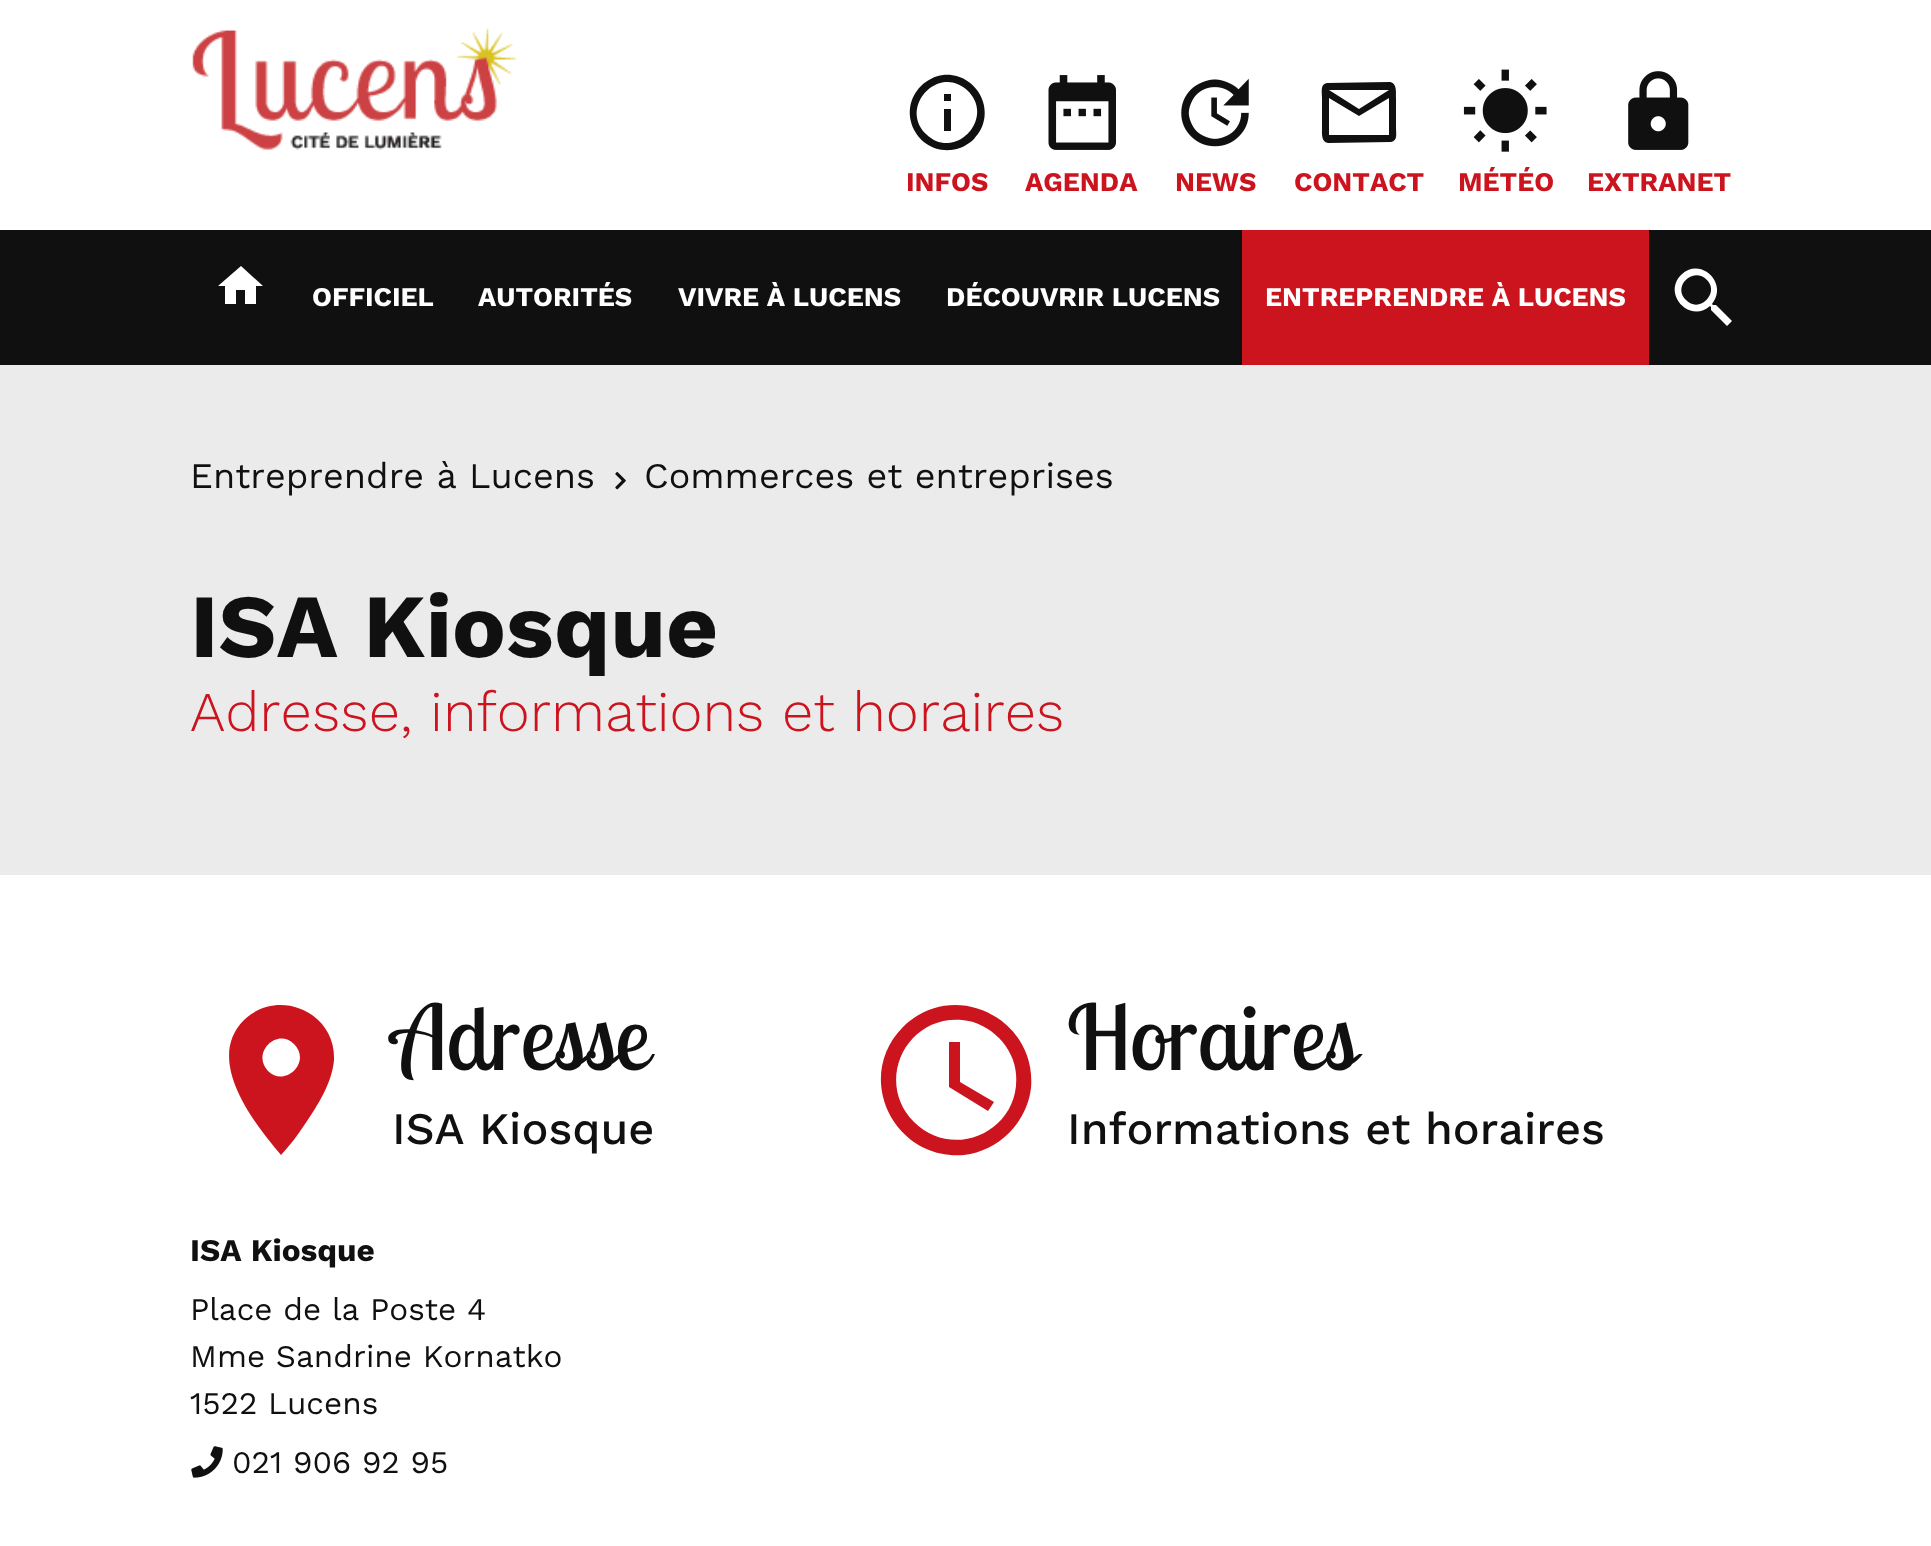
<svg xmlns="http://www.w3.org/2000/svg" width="1931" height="1546">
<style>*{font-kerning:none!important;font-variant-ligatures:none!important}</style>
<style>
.a{font:bold 27px Work Sans;fill:#cc141f}
.b{font:bold 27px Work Sans;fill:#fff}
.c{font:36px Work Sans;fill:#101010}
.d{font:bold 90px Work Sans;fill:#101010}
.e{font:300 56.25px Work Sans;fill:#cc141f}
.f{font:90px Lobster Two;fill:#101010}
.g{font:500 45px Work Sans;fill:#101010}
.h{font:bold 31.5px Work Sans;fill:#101010}
.i{font:31.5px Work Sans;fill:#101010}
</style>
<rect width="100%" height="100%" fill="#fff"/>
<image href="1.png" x="192" y="28" width="325" height="122"/>
<path fill="#101010" d="M944 101v-7h7v7zm-18 33c28 28 70-15 42-43c-28-28-70 15-42 43zm-5-48c6-6 14-10 22-11c35-3 56 39 31 64c-6 6-14 10-23 11c-35 3-55-39-30-64zm23 45v-22h7v22z"/>
<image href="2.png" x="1048" y="75" width="68" height="75"/>
<image href="3.png" x="1181" y="78" width="68" height="69"/>
<path fill="#101010" d="M1359 109l30-19h-60zm30 26v-37l-30 18l-30-18v37zm0-53c8 0 7 10 7 16v30c0 5 2 13-5 14l-63 1c-7-1-6-10-6-15v-30c0-6-2-14 5-15z"/>
<image href="4.png" x="1463" y="69" width="84" height="83"/>
<image href="5.png" x="1628" y="71" width="61" height="79"/>
<path fill="#101010" d="M0 230h1931v135H0z"/>
<path fill="#fff" d="M236 304h-11v-18h-7l23-20l22 20h-7v18h-11v-14h-9z"/>
<path fill="#cc141f" d="M1242 230h407v135H1242z"/>
<path fill="#fff" d="M1686 300c13 14 34-7 21-20c-14-14-35 7-21 20zm30 5l16 16l-5 5l-16-16v-3l-1-1c-20 18-48-12-29-31c19-19 48 8 31 29l1 1z"/>
<path fill="#ebebeb" d="M0 365h1931v510H0z"/>
<image href="6.png" x="615" y="472" width="11" height="18"/>
<path fill="#cc141f" d="M268 1071c17 17 44-9 26-27c-17-17-43 9-26 27zm-24-51c34-33 92-8 90 40c-2 23-16 45-29 64c-7 11-15 21-24 31c-27-32-77-95-37-135z"/>
<image href="7.png" x="191" y="1446" width="32" height="32"/>
<path fill="#cc141f" d="M960 1042v40l34 20l-6 9l-39-24v-45zm-46 80c40 40 107 8 102-48c-1-14-8-27-17-36c-10-10-23-17-37-18c-56-5-88 62-48 102zm-11-95c50-50 134-9 128 61c-2 17-10 33-22 45c-12 12-28 20-45 22c-70 6-111-78-61-128z"/>
<text class="a" x="906" y="191">INFOS</text>
<text class="a" x="1025" y="191">AGENDA</text>
<text class="a" x="1175" y="191">NEWS</text>
<text class="a" x="1294" y="191">CONTACT</text>
<text class="a" x="1458" y="191">MÉTÉO</text>
<text class="a" x="1587" y="191">EXTRANET</text>
<text class="b" x="312" y="306">OFFICIEL</text>
<text class="b" x="478" y="306">AUTORITÉS</text>
<text class="b" x="678" y="306">VIVRE À LUCENS</text>
<text class="b" x="946" y="306">DÉCOUVRIR LUCENS</text>
<text class="b" x="1265" y="306">ENTREPRENDRE À LUCENS</text>
<text class="c" x="190" y="488">Entreprendre à Lucens</text>
<text class="c" x="644" y="488">Commerces et entreprises</text>
<text class="d" x="190" y="657">ISA Kiosque</text>
<text class="e" x="190" y="731">Adresse, informations et horaires</text>
<text class="f" x="392" y="1070">Adresse</text>
<text class="g" x="392" y="1144">ISA Kiosque</text>
<text class="h" x="190" y="1261">ISA Kiosque</text>
<text class="i" x="190" y="1320">Place de la Poste 4</text>
<text class="i" x="190" y="1367">Mme Sandrine Kornatko</text>
<text class="i" x="190" y="1414">1522 Lucens</text>
<text class="i" x="232" y="1473">021 906 92 95</text>
<text class="f" x="1067" y="1070">Horaires</text>
<text class="g" x="1067" y="1144">Informations et horaires</text>
</svg>
